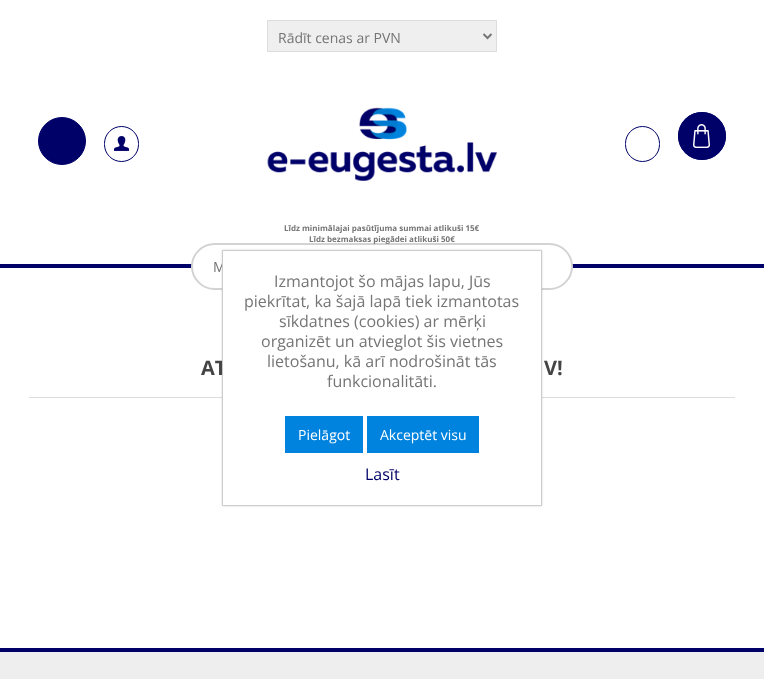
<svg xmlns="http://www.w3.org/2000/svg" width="764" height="679">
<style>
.a{font:14px Open Sans;fill:#757575}
.b{font:bold 8px Open Sans;fill:#757575}
.c{font:bold 20px Open Sans;fill:#444}
.d{font:16px Open Sans;fill:#757575}
.e{font:14px Open Sans;fill:#fff}
.f{font:16px Open Sans;fill:#000069}
</style>
<rect width="100%" height="100%" fill="#fff"/>
<path fill="#000069" d="M0 264h764v4H0z"/>
<path fill="#efefef" stroke="#ddd" d="M267.5 20.5h229v31H267.5z"/>
<path fill="none" stroke="#777" stroke-width="2" d="M483.5 34l4 4l4-4"/>
<circle fill="#000069" stroke="#000069" cx="62" cy="141" r="23.5"/>
<image href="1.png" x="114" y="136" width="15" height="15"/>
<rect fill="none" stroke="#000069" x="104.5" y="126.5" width="34" height="35" rx="17"/>
<rect fill="none" stroke="#000069" x="625.5" y="126.5" width="34" height="35" rx="17"/>
<circle fill="#000069" cx="702" cy="136" r="24"/>
<image href="2.png" x="693" y="124" width="17" height="24"/>
<circle fill="none" stroke="#000069" cx="702" cy="136" r="23.5"/>
<image href="3.png" x="267" y="107" width="230" height="74"/>
<rect fill="#fff" stroke="#d3d3d3" stroke-width="2" x="192" y="244" width="380" height="45" rx="22.5"/>
<path fill="#ddd" d="M29 397h706v1H29z"/>
<path fill="#eee" d="M0 652h764v27H0z"/>
<path fill="#000069" d="M0 648h764v4H0z"/>
<path fill="#00000026" filter="blur(1px)" d="M222 250h320v256H222z"/>
<text class="a" x="278" y="43">Rādīt cenas ar PVN</text>
<text class="b" x="284" y="231">Līdz minimālajai pasūtījuma summai atlikuši 15€</text>
<text class="b" x="309" y="242">Līdz bezmaksas piegādei atlikuši 50€</text>
<text class="a" x="213" y="272">M</text>
<text class="c" x="201" y="375">AT</text>
<text class="c" x="544" y="375">V!</text>
<path fill="#fff" stroke="#ccc" d="M222.5 250.5h319v255H222.5z"/>
<text class="d" x="274" y="287">Izmantojot šo mājas lapu, Jūs</text>
<text class="d" x="244" y="307">piekrītat, ka šajā lapā tiek izmantotas</text>
<text class="d" x="279" y="327">sīkdatnes (cookies) ar mērķi</text>
<text class="d" x="261" y="347">organizēt un atvieglot šis vietnes</text>
<text class="d" x="267" y="367">lietošanu, kā arī nodrošināt tās</text>
<text class="d" x="327" y="387">funkcionalitāti.</text>
<path fill="#0083df" d="M285 416h78v37H285z"/>
<text class="e" x="298" y="440">Pielāgot</text>
<path fill="#0083df" d="M367 416h112v37H367z"/>
<text class="e" x="380" y="440">Akceptēt visu</text>
<text class="f" x="365" y="480">Lasīt</text>
</svg>
